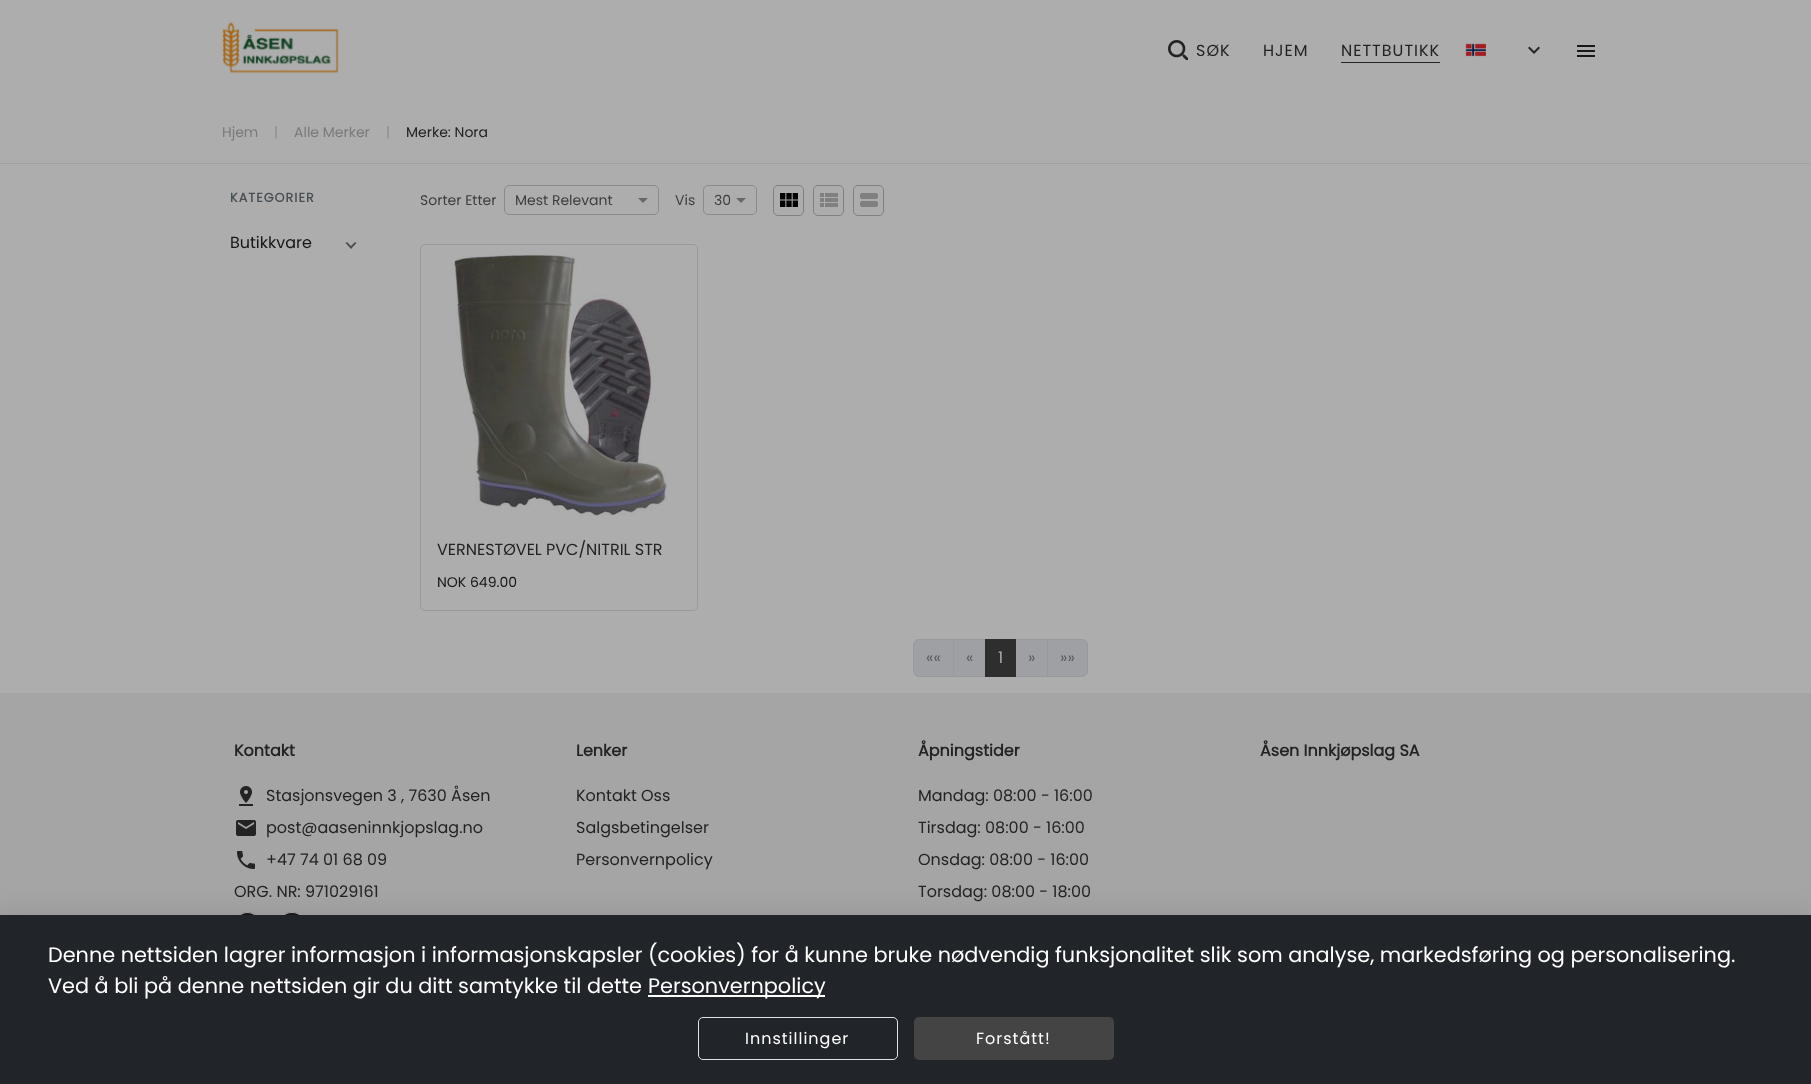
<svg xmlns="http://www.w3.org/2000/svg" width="1811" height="1084">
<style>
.a{font:16px Poppins;letter-spacing:1px;fill:#232323}
.b{font:14px Poppins;fill:#7a7a7a}
.c{font:14px Poppins;fill:#8d8d8d}
.d{font:14px Poppins;fill:#232323}
.e{font:bold 12.75px Poppins;letter-spacing:1px;fill:#495055}
.f{font:16px Poppins;fill:#161616}
.g{font:14px Poppins;fill:#3e3e3e}
.h{font:16px Poppins;fill:#232323}
.i{font:14px Poppins;fill:#161616}
.j{font:16px Poppins;fill:#5c5d5f}
.k{font:16px Poppins;fill:#adadad}
.l{font:bold 16px Poppins;fill:#232323}
.m{font:20.8px Poppins;fill:#fff}
.n{font:16px Poppins;letter-spacing:1px;fill:#fff}
</style>
<rect width="100%" height="100%" fill="#adadad"/>
<image href="1.png" x="222" y="21" width="117" height="53"/>
<image href="2.png" x="1168" y="40" width="20" height="20"/>
<path fill="#232323" d="M1341 62h99v1H1341z"/>
<image href="3.png" x="1465" y="43" width="21" height="14"/>
<image href="4.png" x="1528" y="46" width="12" height="8"/>
<image href="5.png" x="1577" y="45" width="18" height="12"/>
<path fill="#a0a0a0" d="M0 163h1811v1H0z"/>
<path fill="#505050" d="M356.5 243l-5.5 6v-3l4-4zm-5.5 6l-5.5-6l1.5-1l4 4z"/>
<rect fill="none" stroke="#8b8b8b" x="504.5" y="185.5" width="154" height="29" rx="4.5"/>
<path fill="#686868" d="M638 198h10l-5 5z"/>
<rect fill="none" stroke="#8b8b8b" x="703.5" y="185.5" width="53" height="29" rx="4.5"/>
<path fill="#686868" d="M736 198h10l-5 5z"/>
<rect fill="none" stroke="#808080" x="773.5" y="185.5" width="30" height="30" rx="4.5"/>
<image href="6.png" x="780" y="193" width="18" height="14"/>
<rect fill="none" stroke="#808080" x="813.5" y="185.5" width="30" height="30" rx="4.5"/>
<image href="7.png" x="820" y="193" width="18" height="14"/>
<rect fill="none" stroke="#808080" x="853.5" y="185.5" width="30" height="30" rx="4.5"/>
<image href="8.png" x="860" y="193" width="18" height="14"/>
<rect fill="none" stroke="#979a9c" x="420.5" y="244.5" width="277" height="366" rx="4.5"/>
<image href="9.png" x="451" y="254" width="217" height="267"/>
<path fill="#9ea0a3" stroke="#979a9c" d="M919 639.5h34.5v37h-34.5c-3 0-5.5-2.5-5.5-5.5v-26c0-3 2.5-5.5 5.5-5.5z"/>
<path fill="#9ea0a3" stroke="#979a9c" d="M953.5 639.5h32v37H953.5z"/>
<path fill="#9ea0a3" stroke="#979a9c" d="M1015.5 639.5h32v37H1015.5z"/>
<path fill="#2e2e2e" d="M985 639h31v38H985z"/>
<path fill="#9ea0a3" stroke="#979a9c" d="M1047.5 639.5h34.5c3 0 5.5 2.5 5.5 5.5v26c0 3-2.5 5.5-5.5 5.5h-34.5z"/>
<path fill="#a5a5a5" d="M0 693h1811v222H0z"/>
<image href="10.png" x="239" y="786" width="14" height="20"/>
<image href="11.png" x="236" y="820" width="20" height="16"/>
<image href="12.png" x="237" y="851" width="18" height="18"/>
<image href="13.png" x="239" y="912" width="17" height="3"/>
<image href="14.png" x="283" y="912" width="18" height="3"/>
<path fill="#0000001f" filter="blur(15px)" d="M-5 916h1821v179H-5z"/>
<path fill="#212529" d="M0 915h1811v169H0z"/>
<path fill="#fff" d="M648 995h177v2H648z"/>
<rect fill="none" stroke="#dee2e6" x="698.5" y="1017.5" width="199" height="42" rx="4.5"/>
<rect fill="#444" x="914" y="1017" width="200" height="43" rx="5"/>
<text class="a" x="1196" y="56">SØK</text>
<text class="a" x="1263" y="56">HJEM</text>
<text class="a" x="1341" y="56">NETTBUTIKK</text>
<text class="b" x="222" y="137">Hjem</text>
<text class="c" x="274" y="137">|</text>
<text class="b" x="294" y="137">Alle Merker</text>
<text class="c" x="386" y="137">|</text>
<text class="d" x="406" y="137">Merke: Nora</text>
<text class="e" x="230" y="202">KATEGORIER</text>
<text class="f" x="230" y="248">Butikkvare</text>
<text class="g" x="420" y="205">Sorter Etter</text>
<text class="g" x="515" y="205">Mest Relevant</text>
<text class="g" x="675" y="205">Vis</text>
<text class="g" x="714" y="205">30</text>
<text class="h" x="437" y="555">VERNESTØVEL PVC/NITRIL STR</text>
<text class="i" x="437" y="587">NOK 649.00</text>
<text class="j" x="926" y="663">««</text>
<text class="j" x="966" y="663">«</text>
<text class="k" x="998" y="663">1</text>
<text class="j" x="1028" y="663">»</text>
<text class="j" x="1060" y="663">»»</text>
<text class="l" x="234" y="756">Kontakt</text>
<text class="h" x="266" y="801">Stasjonsvegen 3 , 7630 Åsen</text>
<text class="h" x="266" y="833">post@aaseninnkjopslag.no</text>
<text class="h" x="266" y="865">+47 74 01 68 09</text>
<text class="h" x="234" y="897">ORG. NR: 971029161</text>
<text class="l" x="576" y="756">Lenker</text>
<text class="h" x="576" y="801">Kontakt Oss</text>
<text class="h" x="576" y="833">Salgsbetingelser</text>
<text class="h" x="576" y="865">Personvernpolicy</text>
<text class="l" x="918" y="756">Åpningstider</text>
<text class="h" x="918" y="801">Mandag: 08:00 - 16:00</text>
<text class="h" x="918" y="833">Tirsdag: 08:00 - 16:00</text>
<text class="h" x="918" y="865">Onsdag: 08:00 - 16:00</text>
<text class="h" x="918" y="897">Torsdag: 08:00 - 18:00</text>
<text class="l" x="1260" y="756">Åsen Innkjøpslag SA</text>
<text class="m" x="48" y="962">Denne nettsiden lagrer informasjon i informasjonskapsler (cookies) for å kunne bruke nødvendig funksjonalitet slik som analyse, markedsføring og personalisering.</text>
<text class="m" x="48" y="993">Ved å bli på denne nettsiden gir du ditt samtykke til dette</text>
<text class="m" x="648" y="993">Personvernpolicy</text>
<text class="n" x="745" y="1044">Innstillinger</text>
<text class="n" x="976" y="1044">Forstått!</text>
</svg>
